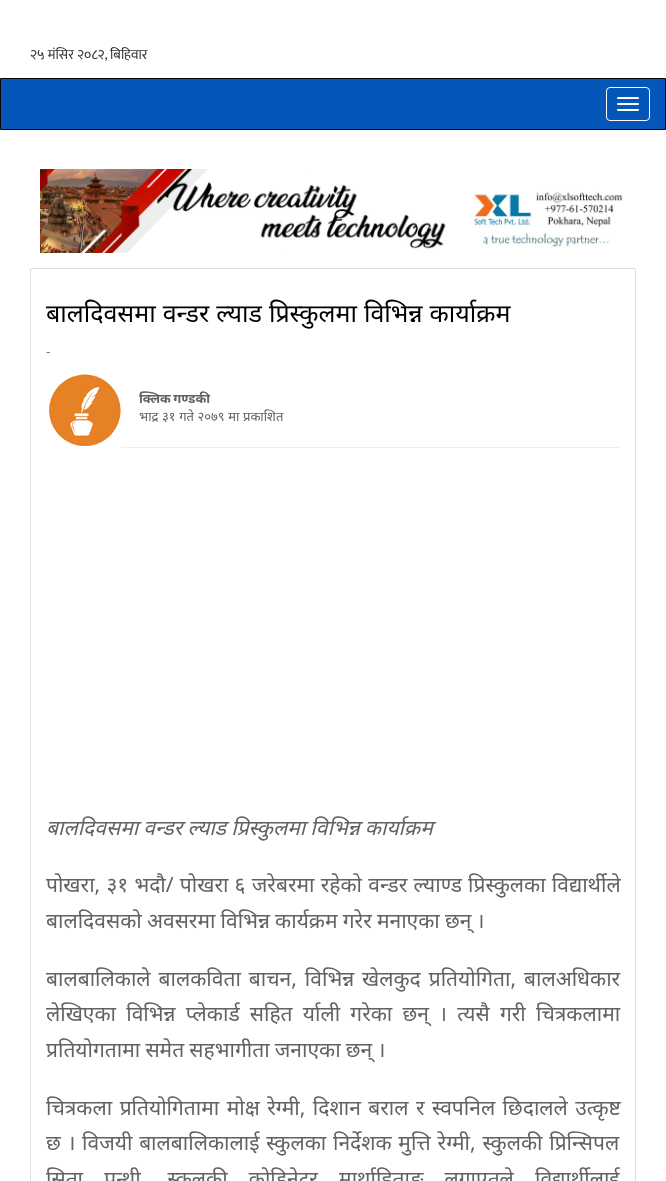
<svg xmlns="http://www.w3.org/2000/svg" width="666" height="1181">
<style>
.a{font:25px Noto Sans;fill:#000}
.b{font:13px Liberation Sans;fill:#767575}
.c{font:bold 13px Noto Sans;fill:#636262}
.d{font:13px Noto Sans;fill:#636262}
.e{font:italic 21px Noto Sans;fill:#636262}
.f{font:21px Noto Sans;fill:#636262}
</style>
<rect width="100%" height="100%" fill="#fff"/>
<image href="1.png" x="30" y="47" width="118" height="14"/>
<path fill="#0556b9" stroke="#080808" d="M0.5 78.5h665v51H0.5z"/>
<rect fill="none" stroke="#fff" x="606.5" y="87.5" width="43" height="33" rx="3.5"/>
<rect fill="#fff" x="617" y="97" width="22" height="2" rx="1"/>
<rect fill="#fff" x="617" y="103" width="22" height="2" rx="1"/>
<rect fill="#fff" x="617" y="109" width="22" height="2" rx="1"/>
<image href="2.png" x="40" y="169" width="583" height="84"/>
<path fill="none" stroke="#dfdfdf" d="M30.5 268.5h605v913H30.5z"/>
<image href="3.png" x="49" y="374" width="72" height="72"/>
<path fill="#eee" d="M121 447h499v1H121z"/>
<text class="a" x="46" y="322" word-spacing="0.5">बालदिवसमा वन्डर ल्याड प्रिस्कुलमा विभिन्न कार्याक्रम</text>
<text class="b" x="46" y="356">-</text>
<text class="c" x="139" y="403" word-spacing="-1">क्लिक गण्डकी</text>
<text class="d" x="139" y="421" word-spacing="0.25">भाद्र ३१ गते २०७९ मा प्रकाशित</text>
<text class="e" x="46" y="835" word-spacing="-0.25">बालदिवसमा वन्डर ल्याड प्रिस्कुलमा विभिन्न कार्याक्रम</text>
<text class="f" x="46" y="892" word-spacing="0.75">पोखरा, ३१ भदौ/ पोखरा ६ जरेबरमा रहेको वन्डर ल्याण्ड प्रिस्कुलका विद्यार्थीले</text>
<text class="f" x="46" y="928" word-spacing="-0.25">बालदिवसको अवसरमा विभिन्न कार्यक्रम गरेर मनाएका छन् ।</text>
<text class="f" x="46" y="986" word-spacing="2.5">बालबालिकाले बालकविता बाचन, विभिन्न खेलकुद प्रतियोगिता, बालअधिकार</text>
<text class="f" x="46" y="1021" word-spacing="4.75">लेखिएका विभिन्न प्लेकार्ड सहित र्याली गरेका छन् । त्यसै गरी चित्रकलामा</text>
<text class="f" x="46" y="1057" word-spacing="-0.25">प्रतियोगतामा समेत सहभागीता जनाएका छन् ।</text>
<text class="f" x="46" y="1115" word-spacing="2">चित्रकला प्रतियोगितामा मोक्ष रेग्मी, दिशान बराल र स्वपनिल छिदालले उत्कृष्ट</text>
<text class="f" x="46" y="1150" word-spacing="1.25">छ । विजयी बालबालिकालाई स्कुलका निर्देशक मुत्ति रेग्मी, स्कुलकी प्रिन्सिपल</text>
<text class="f" x="46" y="1186" word-spacing="15.75">सिता पन्थी, स्कुलकी कोडिनेटर मार्थाहिताङ लगाएतले विद्यार्थीलाई</text>
</svg>
